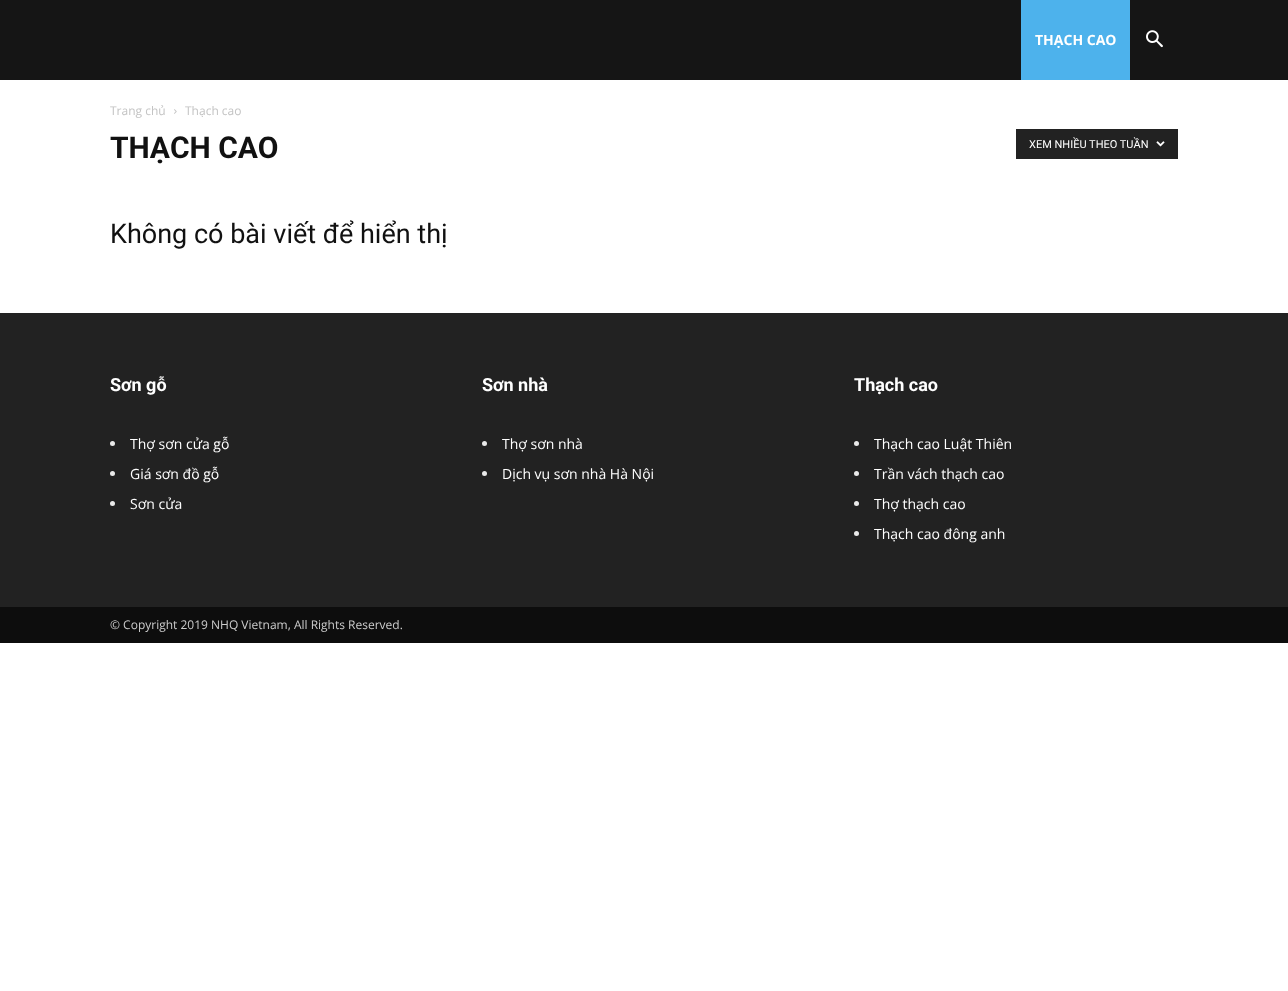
<svg xmlns="http://www.w3.org/2000/svg" width="1288" height="991">
<style>
.a{font:bold 14px Open Sans;fill:#fff}
.b{font:12px Open Sans;fill:#c3c3c3}
.c{font:bold 30px Roboto;fill:#111}
.d{font:11px Roboto;fill:#fff}
.e{font:27px Roboto;fill:#111}
.f{font:bold 18px Roboto;fill:#fff}
.g{font:14px Open Sans;fill:#fff}
.h{font:12px Open Sans;fill:#ccc}
</style>
<rect width="100%" height="100%" fill="#fff"/>
<path fill="#151515" d="M0 0h1288v80H0z"/>
<path fill="#4db2ec" d="M1021 0h109v80H1021z"/>
<image href="1.png" x="1146" y="30" width="17" height="18"/>
<image href="2.png" x="174" y="109" width="3" height="5"/>
<path fill="#222" d="M1016 129h162v30H1016z"/>
<image href="3.png" x="1156" y="141" width="9" height="6"/>
<path fill="#222" d="M0 313h1288v294H0z"/>
<circle fill="#eaeaea" cx="112.5" cy="443.5" r="2.5"/>
<circle fill="#eaeaea" cx="112.5" cy="473.5" r="2.5"/>
<circle fill="#eaeaea" cx="112.5" cy="503.5" r="2.5"/>
<circle fill="#eaeaea" cx="484.5" cy="443.5" r="2.5"/>
<circle fill="#eaeaea" cx="484.5" cy="473.5" r="2.5"/>
<circle fill="#eaeaea" cx="856.5" cy="443.5" r="2.5"/>
<circle fill="#eaeaea" cx="856.5" cy="473.5" r="2.5"/>
<circle fill="#eaeaea" cx="856.5" cy="503.5" r="2.5"/>
<circle fill="#eaeaea" cx="856.5" cy="533.5" r="2.5"/>
<path fill="#0d0d0d" d="M0 607h1288v36H0z"/>
<text class="a" x="1035" y="45">THẠCH CAO</text>
<text class="b" x="110" y="115">Trang chủ</text>
<text class="b" x="185" y="115">Thạch cao</text>
<text class="c" x="110" y="158">THẠCH CAO</text>
<text class="d" x="1029" y="148">XEM NHIỀU THEO TUẦN</text>
<text class="e" x="110" y="243">Không có bài viết để hiển thị</text>
<text class="f" x="110" y="391">Sơn gỗ</text>
<text class="g" x="130" y="449">Thợ sơn cửa gỗ</text>
<text class="g" x="130" y="479">Giá sơn đồ gỗ</text>
<text class="g" x="130" y="509">Sơn cửa</text>
<text class="f" x="482" y="391">Sơn nhà</text>
<text class="g" x="502" y="449">Thợ sơn nhà</text>
<text class="g" x="502" y="479">Dịch vụ sơn nhà Hà Nội</text>
<text class="f" x="854" y="391">Thạch cao</text>
<text class="g" x="874" y="449">Thạch cao Luật Thiên</text>
<text class="g" x="874" y="479">Trần vách thạch cao</text>
<text class="g" x="874" y="509">Thợ thạch cao</text>
<text class="g" x="874" y="539">Thạch cao đông anh</text>
<text class="h" x="110" y="629">© Copyright 2019 NHQ Vietnam, All Rights Reserved.</text>
</svg>
